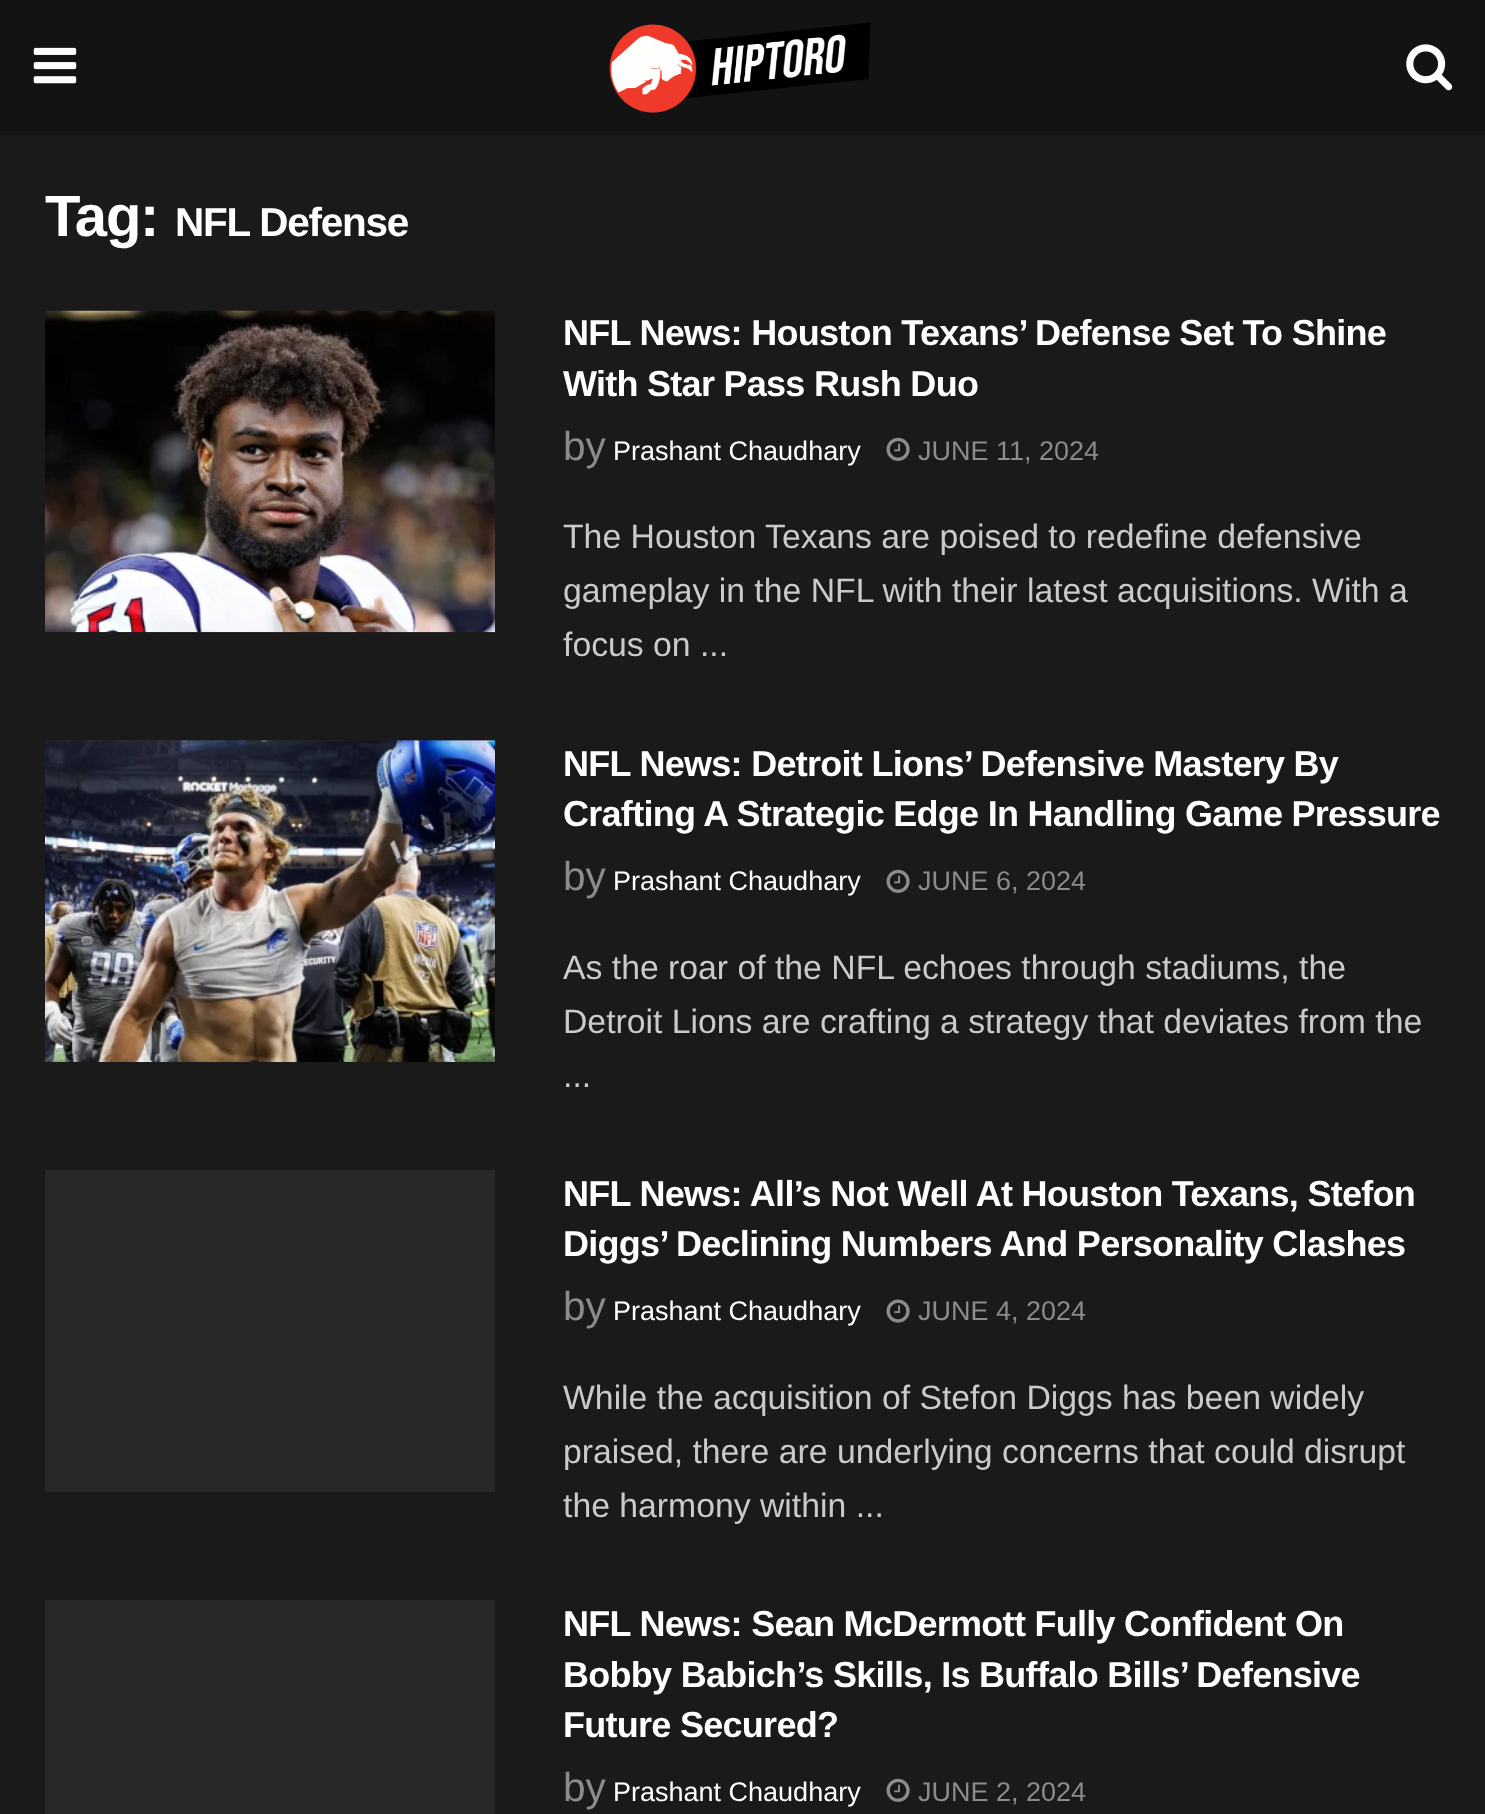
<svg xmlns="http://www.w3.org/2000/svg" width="1485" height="1814">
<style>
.a{font:bold 58px Liberation Sans;letter-spacing:-1.25px;fill:#fff}
.b{font:bold 40.5px Liberation Sans;letter-spacing:-1.25px;fill:#fff}
.c{font:bold 36px Liberation Sans;letter-spacing:-0.72px;fill:#fff}
.d{font:40.5px Liberation Sans;fill:#8b8b8b}
.e{font:27px Liberation Sans;fill:#fff}
.f{font:27px Liberation Sans;fill:#8b8b8b}
.g{font:33.75px Liberation Sans;fill:#cacaca}
</style>
<rect width="100%" height="100%" fill="#1a1a1a"/>
<path fill="#131313" d="M0 0h1485v135H0z"/>
<image href="1.png" x="33" y="47" width="44" height="37"/>
<image href="2.png" x="609" y="22" width="262" height="91"/>
<image href="3.png" x="1406" y="44" width="47" height="47"/>
<image href="4.png" x="45" y="310" width="450" height="323"/>
<image href="5.png" x="886" y="437" width="24" height="24"/>
<path fill="#282828" d="M45 740h450v1H45z"/>
<image href="6.png" x="45" y="740" width="450" height="322"/>
<image href="5.png" x="886" y="869" width="24" height="24"/>
<path fill="#282828" d="M45 1170h450v322H45z"/>
<image href="7.png" x="886" y="1299" width="24" height="24"/>
<path fill="#282828" d="M45 1600h450v214H45z"/>
<image href="5.png" x="886" y="1778" width="24" height="24"/>
<text class="a" x="45" y="236">Tag:</text>
<text class="b" x="175" y="236">NFL Defense</text>
<text class="c" x="563" y="345">NFL News: Houston Texans’ Defense Set To Shine</text>
<text class="c" x="563" y="396">With Star Pass Rush Duo</text>
<text class="d" x="563" y="460">by</text>
<text class="e" x="613" y="460">Prashant Chaudhary</text>
<text class="f" x="918" y="460">JUNE 11, 2024</text>
<text class="g" x="563" y="548">The Houston Texans are poised to redefine defensive</text>
<text class="g" x="563" y="602">gameplay in the NFL with their latest acquisitions. With a</text>
<text class="g" x="563" y="656">focus on ...</text>
<text class="c" x="563" y="776">NFL News: Detroit Lions’ Defensive Mastery By</text>
<text class="c" x="563" y="826">Crafting A Strategic Edge In Handling Game Pressure</text>
<text class="d" x="563" y="890">by</text>
<text class="e" x="613" y="890">Prashant Chaudhary</text>
<text class="f" x="918" y="890">JUNE 6, 2024</text>
<text class="g" x="563" y="979">As the roar of the NFL echoes through stadiums, the</text>
<text class="g" x="563" y="1033">Detroit Lions are crafting a strategy that deviates from the</text>
<text class="g" x="563" y="1087">...</text>
<text class="c" x="563" y="1206">NFL News: All’s Not Well At Houston Texans, Stefon</text>
<text class="c" x="563" y="1256">Diggs’ Declining Numbers And Personality Clashes</text>
<text class="d" x="563" y="1320">by</text>
<text class="e" x="613" y="1320">Prashant Chaudhary</text>
<text class="f" x="918" y="1320">JUNE 4, 2024</text>
<text class="g" x="563" y="1409">While the acquisition of Stefon Diggs has been widely</text>
<text class="g" x="563" y="1463">praised, there are underlying concerns that could disrupt</text>
<text class="g" x="563" y="1517">the harmony within ...</text>
<text class="c" x="563" y="1636">NFL News: Sean McDermott Fully Confident On</text>
<text class="c" x="563" y="1687">Bobby Babich’s Skills, Is Buffalo Bills’ Defensive</text>
<text class="c" x="563" y="1737">Future Secured?</text>
<text class="d" x="563" y="1801">by</text>
<text class="e" x="613" y="1801">Prashant Chaudhary</text>
<text class="f" x="918" y="1801">JUNE 2, 2024</text>
</svg>
